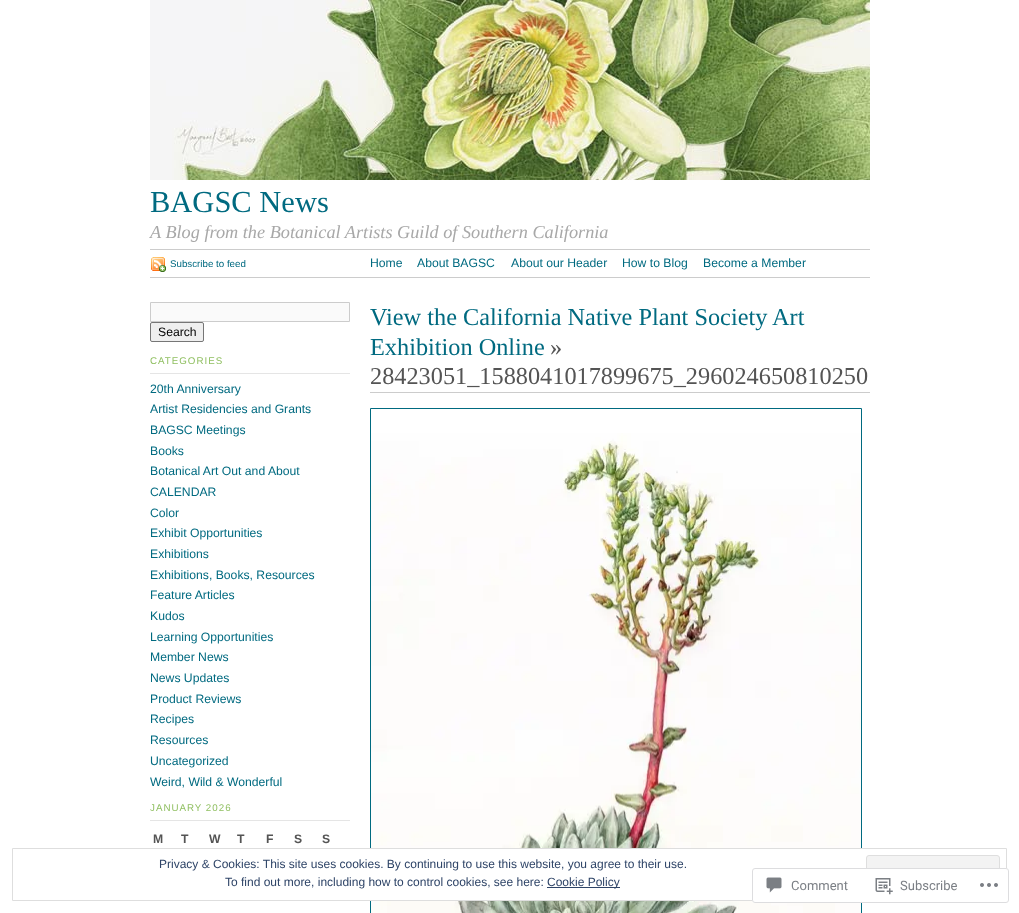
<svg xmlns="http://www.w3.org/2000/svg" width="1019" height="913">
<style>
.a{font:30.5px Liberation Serif;fill:#006a80}
.b{font:italic 18.25px Liberation Serif;fill:#a8a8a8}
.c{font:9.75px Liberation Sans;fill:#006a80}
.d{font:12.2px Liberation Sans;fill:#006a80}
.e{font:12.2px Liberation Sans;fill:#000}
.f{font:9.75px Liberation Sans;letter-spacing:1px;fill:#8fbf60}
.g{font:bold 12.2px Liberation Sans;fill:#545454}
.h{font:24.3px Liberation Serif;fill:#006a80}
.i{font:24.3px Liberation Serif;fill:#545454}
.j{font:12px Liberation Sans;fill:#2e4467}
.k{font:13px Roboto;fill:#7b7f85}
</style>
<rect width="100%" height="100%" fill="#fff"/>
<image href="1.png" x="150" y="0" width="720" height="180"/>
<path fill="#ccc" d="M150 249h720v1H150z"/>
<path fill="#ccc" d="M150 277h720v1H150z"/>
<image href="2.png" x="151" y="257" width="15" height="15"/>
<path fill="#fafafa" stroke="#ccc" d="M150.5 302.5h199v19H150.5z"/>
<rect fill="#efefef" stroke="#767676" x="150.5" y="322.5" width="53" height="19" rx="1.5"/>
<path fill="#e5e5e5" d="M150 373h200v1H150z"/>
<path fill="#e5e5e5" d="M150 820h200v1H150z"/>
<path fill="#ccc" d="M370 392h500v1H370z"/>
<path fill="none" stroke="#006a80" d="M370.5 408.5h491v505H370.5z"/>
<image href="3.png" x="371" y="433" width="490" height="480"/>
<path fill="#fff" d="M370 849h492v51H370z"/>
<path fill="none" stroke="#dedede" d="M12.5 848.5h994v52H12.5z"/>
<rect fill="#f3f3f3" stroke="#dedede" x="866.5" y="855.5" width="133" height="38" rx="2.5"/>
<path fill="#2e4467" d="M547 887h73v1H547z"/>
<rect fill="#fffffffa" x="752" y="868" width="257" height="35" rx="3"/>
<rect fill="none" stroke="#dcdcdefa" x="752.5" y="868.5" width="256" height="34" rx="2.5"/>
<image href="4.png" x="766" y="877" width="16" height="16"/>
<image href="5.png" x="875" y="878" width="18" height="17"/>
<image href="6.png" x="980" y="883" width="18" height="4"/>
<text class="a" x="150" y="212">BAGSC News</text>
<text class="b" x="150" y="238">A Blog from the Botanical Artists Guild of Southern California</text>
<text class="c" x="170" y="267">Subscribe to feed</text>
<text class="d" x="370" y="267">Home</text>
<text class="d" x="417" y="267">About BAGSC</text>
<text class="d" x="511" y="267">About our Header</text>
<text class="d" x="622" y="267">How to Blog</text>
<text class="d" x="703" y="267">Become a Member</text>
<text class="e" x="158" y="336">Search</text>
<text class="f" x="150" y="364">CATEGORIES</text>
<text class="d" x="150" y="393">20th Anniversary</text>
<text class="d" x="150" y="413">Artist Residencies and Grants</text>
<text class="d" x="150" y="434">BAGSC Meetings</text>
<text class="d" x="150" y="455">Books</text>
<text class="d" x="150" y="475">Botanical Art Out and About</text>
<text class="d" x="150" y="496">CALENDAR</text>
<text class="d" x="150" y="517">Color</text>
<text class="d" x="150" y="537">Exhibit Opportunities</text>
<text class="d" x="150" y="558">Exhibitions</text>
<text class="d" x="150" y="579">Exhibitions, Books, Resources</text>
<text class="d" x="150" y="599">Feature Articles</text>
<text class="d" x="150" y="620">Kudos</text>
<text class="d" x="150" y="641">Learning Opportunities</text>
<text class="d" x="150" y="661">Member News</text>
<text class="d" x="150" y="682">News Updates</text>
<text class="d" x="150" y="703">Product Reviews</text>
<text class="d" x="150" y="723">Recipes</text>
<text class="d" x="150" y="744">Resources</text>
<text class="d" x="150" y="765">Uncategorized</text>
<text class="d" x="150" y="786">Weird, Wild &amp; Wonderful</text>
<text class="f" x="150" y="811">JANUARY 2026</text>
<text class="g" x="153" y="843">M</text>
<text class="g" x="181" y="843">T</text>
<text class="g" x="209" y="843">W</text>
<text class="g" x="237" y="843">T</text>
<text class="g" x="266" y="843">F</text>
<text class="g" x="294" y="843">S</text>
<text class="g" x="322" y="843">S</text>
<text class="h" x="370" y="325">View the California Native Plant Society Art</text>
<text class="h" x="370" y="355">Exhibition Online</text>
<text class="i" x="550" y="355">»</text>
<text class="i" x="370" y="384">28423051_1588041017899675_296024650810250</text>
<text class="j" x="159" y="868">Privacy &amp; Cookies: This site uses cookies. By continuing to use this website, you agree to their use.</text>
<text class="j" x="225" y="886">To find out more, including how to control cookies, see here:</text>
<text class="j" x="547" y="886">Cookie Policy</text>
<text class="k" x="791" y="890">Comment</text>
<text class="k" x="900" y="890">Subscribe</text>
</svg>
